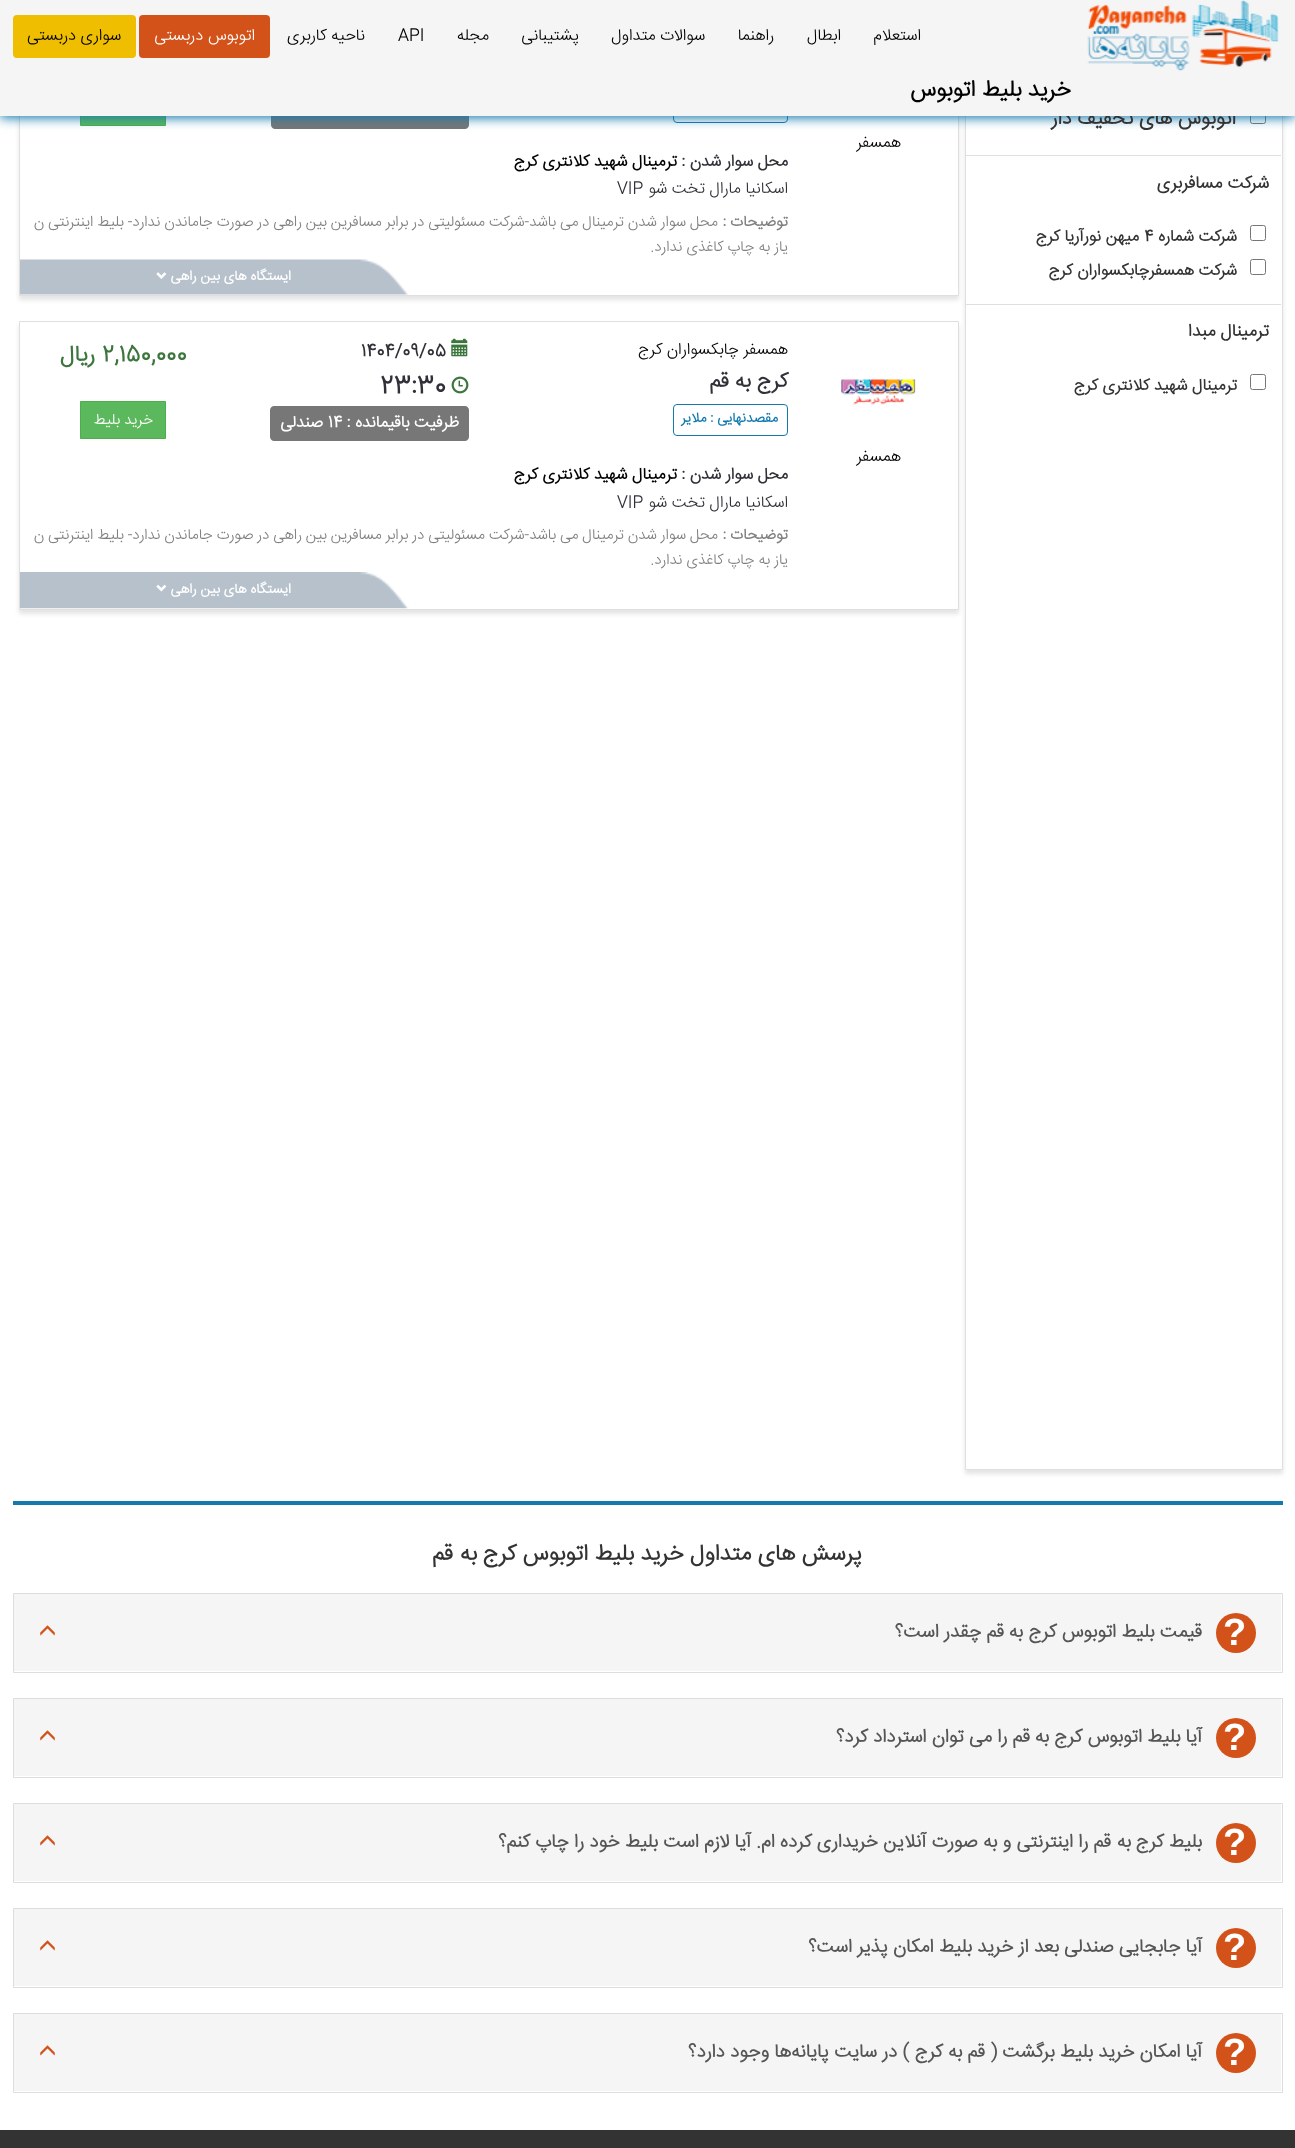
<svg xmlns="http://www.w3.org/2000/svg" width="1295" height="2148">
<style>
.a{font:bold 20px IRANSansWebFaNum;direction:rtl;fill:#333}
.b{font:300 16.25px IRANSansWebFaNum;direction:rtl;fill:#000}
.c{font:300 16.25px IRANSansWebFaNum;direction:rtl;fill:#fff}
.d{font:300 16.25px IRANSansWebFaNum;fill:#000}
.e{font:bold 22.5px IRANSansWebFaNum;direction:rtl;fill:#000}
.f{font:bold 17.5px IRANSansWebFaNum;direction:rtl;fill:#333}
.g{font:bold 16.25px IRANSansWebFaNum;direction:rtl;fill:#333}
.h{font:bold 16.25px IRANSansWebFaNum;fill:#333}
.i{font:bold 16.25px IRANSansWebFaNum;direction:rtl;fill:#303039}
.j{font:bold 16.25px IRANSansWebFaNum;direction:rtl;fill:#000}
.k{font:300 16.25px IRANSansWebFaNum;direction:rtl;fill:#303039}
.l{font:300 16.25px IRANSansWebFaNum;fill:#303039}
.m{font:bold 15px IRANSansWebFaNum;direction:rtl;fill:#808080}
.n{font:300 15px IRANSansWebFaNum;direction:rtl;fill:#808080}
.o{font:bold 13.75px IRANSansWebFaNum;direction:rtl;fill:#fff}
.p{font:bold 21px IRANSansWebFaNum;direction:rtl;fill:#303039}
.q{font:bold 13.75px IRANSansWebFaNum;direction:rtl;fill:#147aae}
.r{font:bold 17.5px IRANSansWebFaNum;fill:#303039}
.s{font:bold 25px IRANSansWebFaNum;fill:#303039}
.t{font:bold 16.25px IRANSansWebFaNum;direction:rtl;fill:#fff}
.u{font:bold 16.25px IRANSansWebFaNum;fill:#fff}
.v{font:bold 22.5px IRANSansWebFaNum;fill:#3c763d}
.w{font:bold 22.5px IRANSansWebFaNum;direction:rtl;fill:#3c763d}
.x{font:300 15px IRANSansWebFaNum;direction:rtl;fill:#fff}
.y{font:bold 22.5px IRANSansWebFaNum;direction:rtl;fill:#333}
.z{font:bold 38px Liberation Sans;fill:#fff}
.a1{font:bold 18.75px IRANSansWebFaNum;direction:rtl;fill:#555}
</style>
<defs>
<clipPath id="clip1"><path d="M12 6h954v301h-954zm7 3h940v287h-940z" clip-rule="evenodd"/></clipPath>
<clipPath id="clip2"><path d="M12 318h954v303h-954zm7 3h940v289h-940z" clip-rule="evenodd"/></clipPath>
</defs>
<rect width="100%" height="100%" fill="#fff"/>
<path fill="#e4e4e4" filter="blur(2px)" d="M965 -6h318v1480H965z"/>
<path fill="#fff" d="M966 116h316v1353H966z"/>
<path fill="none" stroke="#dfdfdf" d="M965.5 -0.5h317v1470H965.5z"/>
<rect fill="none" stroke="#767676" x="1250.5" y="108.5" width="15" height="15" rx="2"/>
<g clip-path="url(#clip1)">
<path fill="#e4e4e4" filter="blur(2px)" d="M19 13h940v287H19z"/>
</g>
<path fill="none" stroke="#dfdfdf" d="M19.5 9.5h939v286H19.5z"/>
<path fill="#777" d="M343 93h122c2 0 4 2 4 4v28c0 2-2 4-4 4h-122z"/>
<path fill="#777" d="M329 116h14v13H329z"/>
<path fill="#777" d="M275 93h54v36h-54c-2 0-4-2-4-4v-28c0-2 2-4 4-4z"/>
<path fill="#5cb85c" d="M81 116h84v9H81z"/>
<path fill="none" stroke="#4cae4c" d="M80.5 89.5h85v36H80.5z"/>
<rect fill="none" stroke="#147aae" x="673.5" y="91.5" width="114" height="31" rx="3.5"/>
<path fill="#147aae" filter="blur(6px)" d="M0 1h1295v117H0z"/>
<path fill="#dfdfdf" d="M966 155h315v1H966z"/>
<rect fill="none" stroke="#767676" x="1250.5" y="225.5" width="15" height="15" rx="2"/>
<rect fill="none" stroke="#767676" x="1250.5" y="259.5" width="15" height="15" rx="2"/>
<path fill="#dfdfdf" d="M966 304h315v1H966z"/>
<rect fill="none" stroke="#767676" x="1250.5" y="374.5" width="15" height="15" rx="2"/>
<image href="2.png" x="20" y="259" width="389" height="36"/>
<image href="3.png" x="156" y="272" width="11" height="7"/>
<g clip-path="url(#clip2)">
<path fill="#e4e4e4" filter="blur(2px)" d="M19 325h940v289H19z"/>
</g>
<path fill="none" stroke="#dfdfdf" d="M19.5 321.5h939v288H19.5z"/>
<image href="4.png" x="841" y="379" width="75" height="26"/>
<rect fill="none" stroke="#147aae" x="673.5" y="404.5" width="114" height="31" rx="3.5"/>
<image href="5.png" x="451" y="338" width="17" height="19"/>
<image href="6.png" x="451" y="376" width="18" height="18"/>
<path fill="#777" d="M343 406h122c2 0 4 2 4 4v27c0 2-2 4-4 4h-122z"/>
<path fill="#777" d="M328 406h15v35H328z"/>
<path fill="#777" d="M274 406h54v35h-54c-2 0-4-2-4-4v-27c0-2 2-4 4-4z"/>
<path fill="#5cb85c" stroke="#4cae4c" d="M80.5 401.5h85v37H80.5z"/>
<image href="7.png" x="20" y="572" width="389" height="37"/>
<image href="8.png" x="156" y="584" width="11" height="8"/>
<path fill="#147aae" d="M13 1501h1270v4H13z"/>
<path fill="none" stroke="#ddd" d="M13.5 1593.5h1269v79H13.5z"/>
<path fill="#f5f5f5" d="M14 1594h1267v77H14z"/>
<circle fill="#d3521a" cx="1236" cy="1633" r="20"/>
<image href="9.png" x="40" y="1625" width="15" height="11"/>
<path fill="none" stroke="#ddd" d="M13.5 1698.5h1269v79H13.5z"/>
<path fill="#f5f5f5" d="M14 1699h1267v77H14z"/>
<circle fill="#d3521a" cx="1236" cy="1738" r="20"/>
<image href="9.png" x="40" y="1730" width="15" height="11"/>
<path fill="none" stroke="#ddd" d="M13.5 1803.5h1269v79H13.5z"/>
<path fill="#f5f5f5" d="M14 1804h1267v77H14z"/>
<circle fill="#d3521a" cx="1236" cy="1843" r="20"/>
<image href="9.png" x="40" y="1835" width="15" height="11"/>
<path fill="none" stroke="#ddd" d="M13.5 1908.5h1269v79H13.5z"/>
<path fill="#f5f5f5" d="M14 1909h1267v77H14z"/>
<circle fill="#d3521a" cx="1236" cy="1948" r="20"/>
<image href="9.png" x="40" y="1940" width="15" height="11"/>
<path fill="none" stroke="#ddd" d="M13.5 2013.5h1269v79H13.5z"/>
<path fill="#f5f5f5" d="M14 2014h1267v77H14z"/>
<circle fill="#d3521a" cx="1236" cy="2053" r="20"/>
<image href="9.png" x="40" y="2045" width="15" height="11"/>
<path fill="#333" d="M0 2130h1295v18H0z"/>
<text class="a" x="1236" y="124">اتوبوس های تخفیف دار</text>
<path fill="#f5f5f5" d="M0 0h1295v116H0z"/>
<rect fill="#efbe00" x="13" y="15" width="123" height="43" rx="4"/>
<text class="b" x="121" y="40">سواری دربستی</text>
<rect fill="#d3521a" x="139" y="15" width="131" height="43" rx="4"/>
<text class="c" x="255" y="40">اتوبوس دربستی</text>
<text class="b" x="365" y="40">ناحیه کاربری</text>
<text class="d" x="398" y="40">API</text>
<text class="b" x="489" y="40">مجله</text>
<text class="b" x="579" y="40">پشتیبانی</text>
<text class="b" x="705" y="40">سوالات متداول</text>
<text class="b" x="774" y="40">راهنما</text>
<text class="b" x="841" y="40">ابطال</text>
<text class="b" x="921" y="40">استعلام</text>
<text class="e" x="1071" y="96">خرید بلیط اتوبوس</text>
<image href="1.png" x="1087" y="0" width="192" height="71"/>
<text class="f" x="1269" y="188">شرکت مسافربری</text>
<text class="g" x="1237" y="241">شرکت شماره</text>
<text class="h" x="1144" y="241">4</text>
<text class="g" x="1139" y="241">ميهن نورآریا کرج</text>
<text class="g" x="1237" y="275">شرکت همسفرچابکسواران کرج</text>
<text class="f" x="1269" y="336">ترمینال مبدا</text>
<text class="g" x="1237" y="390">ترمینال شهید کلانتری کرج</text>
<text class="b" x="901" y="147">همسفر</text>
<text class="i" x="788" y="166">محل سوار شدن :</text>
<text class="j" x="677" y="166">ترمینال شهید کلانتری کرج</text>
<text class="k" x="788" y="193">اسکانیا مارال تخت شو</text>
<text class="l" x="617" y="193">VIP</text>
<text class="m" x="788" y="226">توضیحات :</text>
<text class="n" x="718" y="226" word-spacing="-0.3">محل سوار شدن ترمینال می باشد-شرکت مسئولیتی در برابر مسافرین بین راهی در صورت جاماندن ندارد- بلیط اینترنتی ن</text>
<text class="n" x="788" y="251">یاز به چاپ کاغذی ندارد.</text>
<text class="o" x="291" y="280">ایستگاه های بین راهی</text>
<text class="b" x="901" y="461">همسفر</text>
<text class="b" x="788" y="354">همسفر چابکسواران کرج</text>
<text class="p" x="788" y="387">کرج به قم</text>
<text class="q" x="778" y="422">مقصدنهایی : ملایر</text>
<text class="i" x="788" y="479">محل سوار شدن :</text>
<text class="j" x="677" y="479">ترمینال شهید کلانتری کرج</text>
<text class="k" x="788" y="507">اسکانیا مارال تخت شو</text>
<text class="l" x="617" y="507">VIP</text>
<text class="r" x="361" y="356">1404/09/05</text>
<text class="s" x="380" y="393">23:30</text>
<text class="t" x="459" y="427">ظرفیت باقیمانده :</text>
<text class="u" x="328" y="427">14</text>
<text class="t" x="323" y="427">صندلی</text>
<text class="v" x="102" y="361">2,150,000</text>
<text class="w" x="95" y="361">ریال</text>
<text class="x" x="153" y="424">خرید بلیط</text>
<text class="m" x="788" y="539">توضیحات :</text>
<text class="n" x="718" y="539" word-spacing="-0.3">محل سوار شدن ترمینال می باشد-شرکت مسئولیتی در برابر مسافرین بین راهی در صورت جاماندن ندارد- بلیط اینترنتی ن</text>
<text class="n" x="788" y="564">یاز به چاپ کاغذی ندارد.</text>
<text class="o" x="291" y="593">ایستگاه های بین راهی</text>
<text class="y" x="862" y="1560">پرسش های متداول خرید بلیط اتوبوس کرج</text>
<text class="y" x="477" y="1560">به</text>
<text class="y" x="453" y="1560">قم</text>
<text class="z" x="1223" y="1645">?</text>
<text class="a1" x="1202" y="1637">قیمت بلیط اتوبوس کرج</text>
<text class="a1" x="1023" y="1637">به</text>
<text class="a1" x="1004" y="1637">قم چقدر است؟</text>
<text class="z" x="1223" y="1750">?</text>
<text class="a1" x="1202" y="1742">آیا بلیط اتوبوس کرج</text>
<text class="a1" x="1049" y="1742">به</text>
<text class="a1" x="1030" y="1742">قم را می توان استرداد کرد؟</text>
<text class="z" x="1223" y="1855">?</text>
<text class="a1" x="1202" y="1847">بلیط کرج</text>
<text class="a1" x="1131" y="1847">به</text>
<text class="a1" x="1111" y="1847">قم را اینترنتی و به صورت آنلاین خریداری کرده ام. آیا لازم است بلیط خود را چاپ کنم؟</text>
<text class="z" x="1223" y="1960">?</text>
<text class="a1" x="1202" y="1952">آیا جابجایی صندلی بعد از خرید بلیط امکان پذیر است؟</text>
<text class="z" x="1223" y="2065">?</text>
<text class="a1" x="1202" y="2057">آیا امکان خرید بلیط برگشت ( قم به کرج ) در سایت پایانه‌ها وجود دارد؟</text>
</svg>
